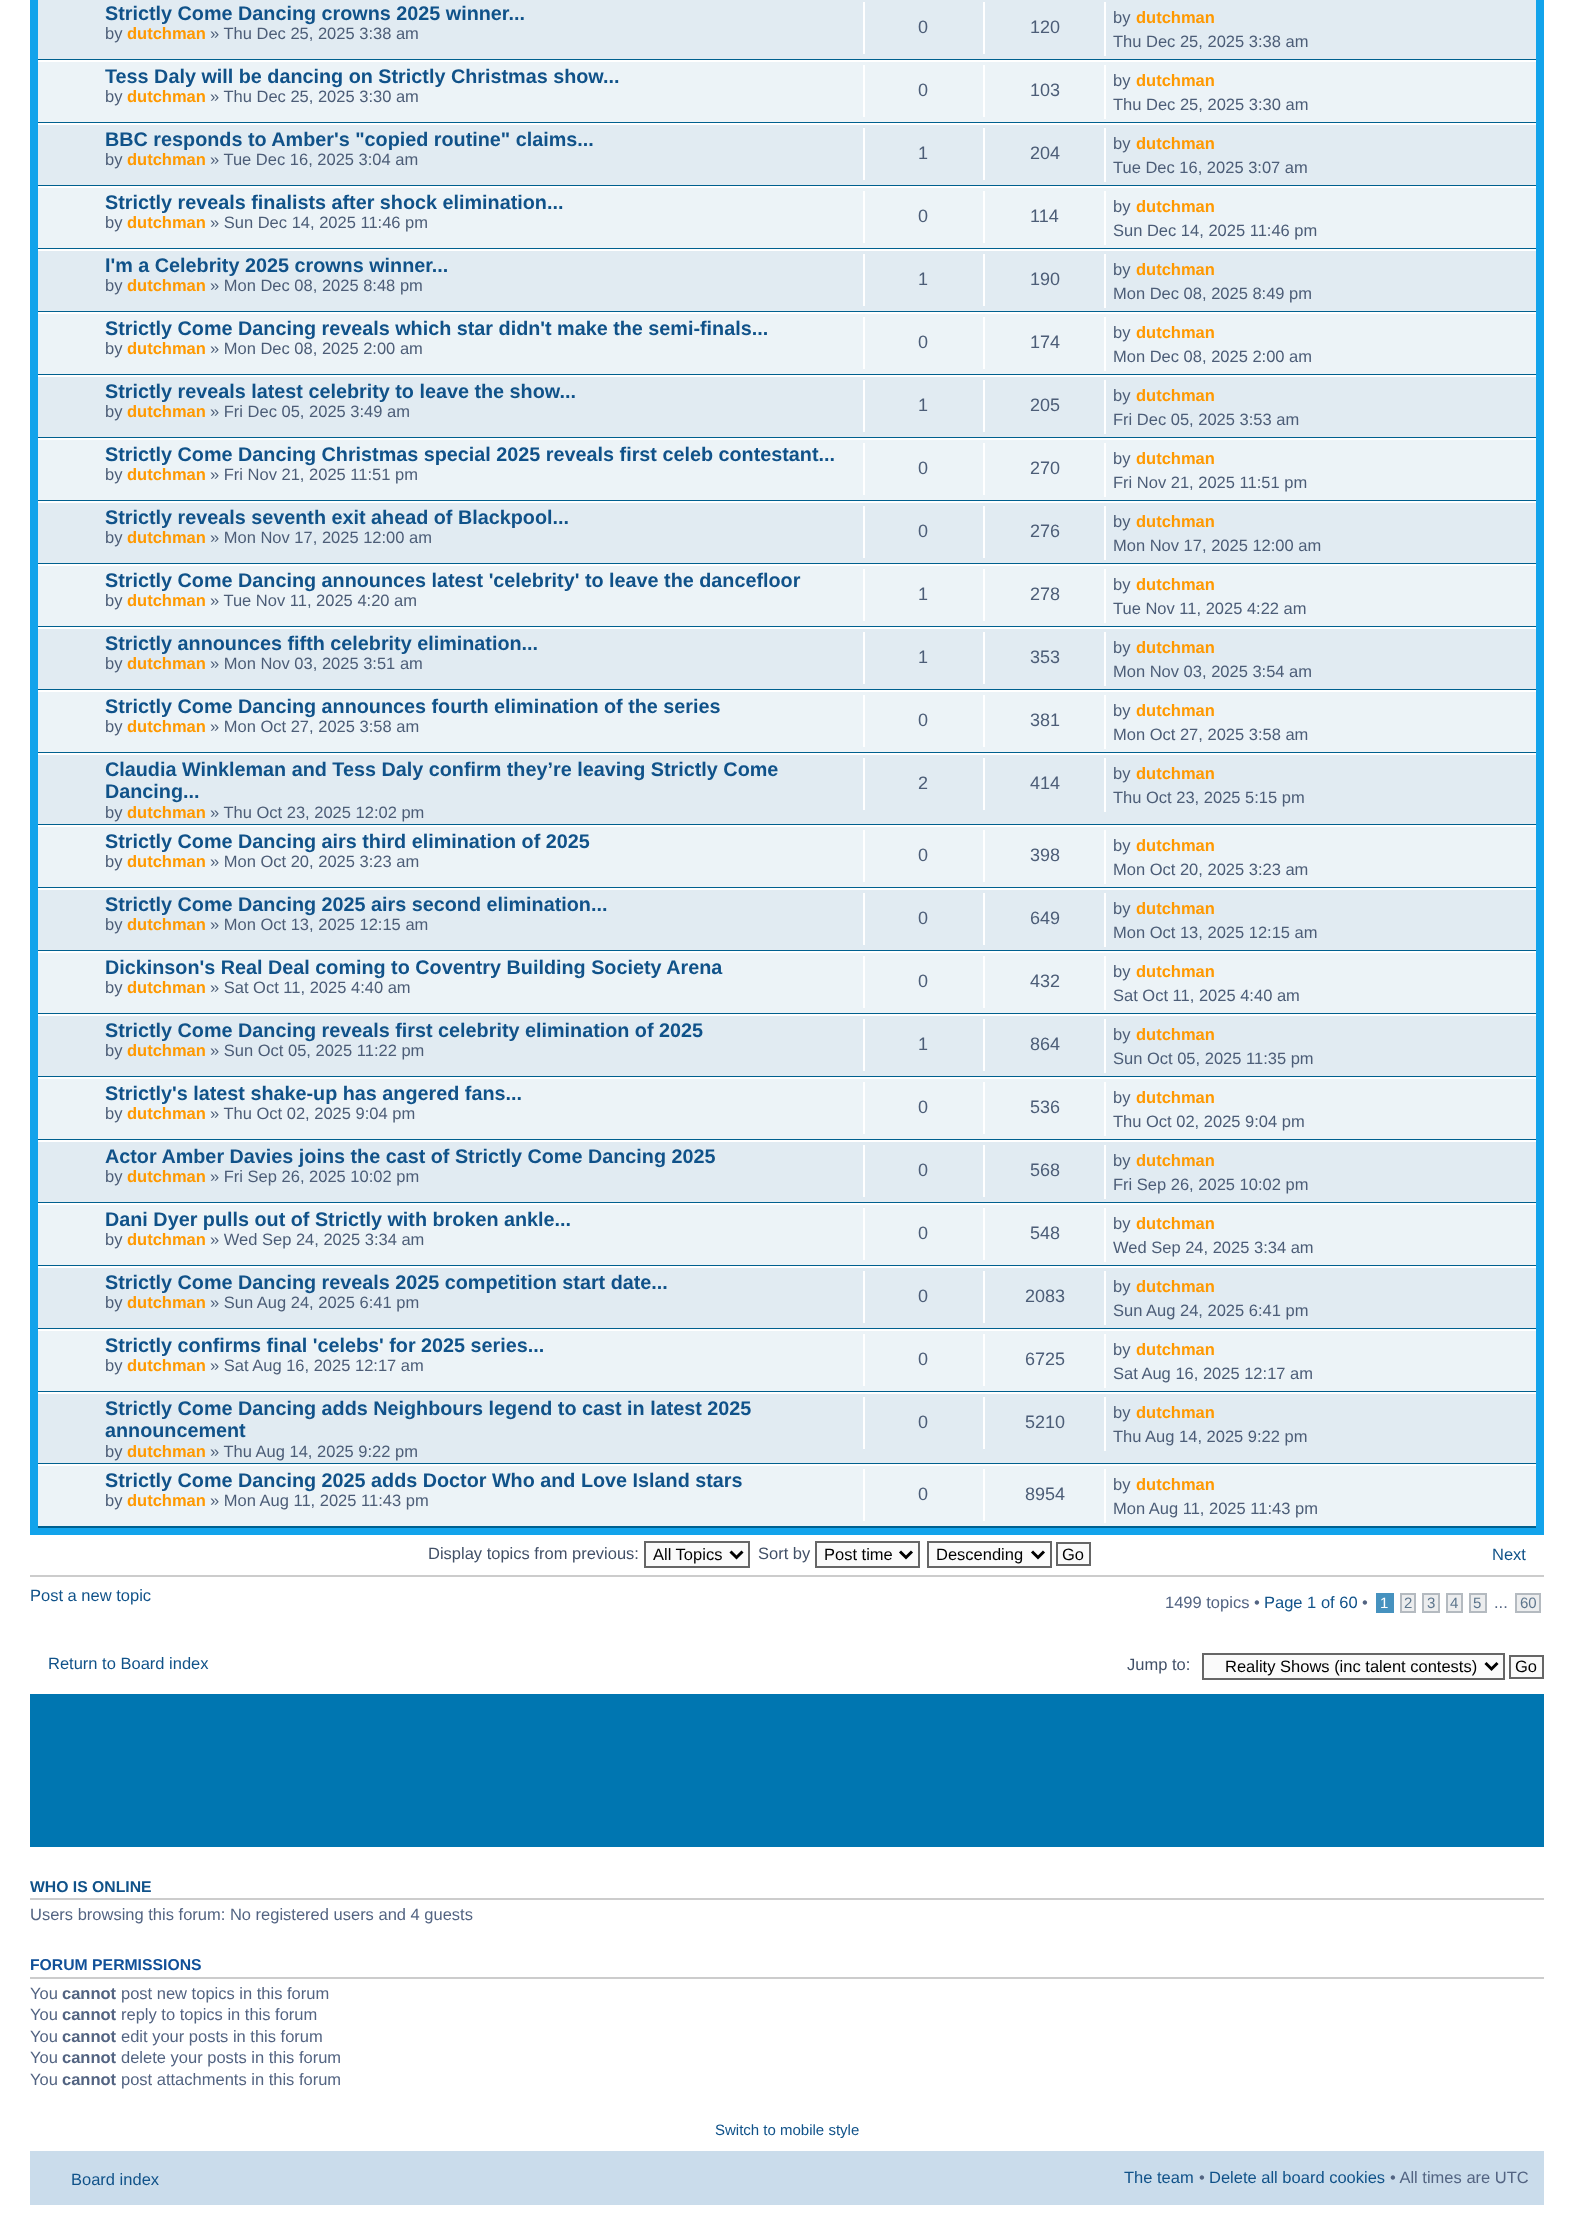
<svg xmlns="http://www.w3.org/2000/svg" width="1573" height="2222">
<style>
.a{font:bold 19.8px Liberation Sans;fill:#105289}
.b{font:16.5px Liberation Sans;fill:#4c5d77}
.c{font:bold 16.5px Liberation Sans;fill:#f90}
.d{font:18px Liberation Sans;fill:#4c5d77}
.e{font:16.5px Liberation Sans;fill:#425067}
.f{font:16.5px Liberation Sans;fill:#000}
.g{font:16.5px Liberation Sans;fill:#105289}
.h{font:16.5px Liberation Sans;fill:#536482}
.i{font:15px Liberation Sans;fill:#fff}
.j{font:15px Liberation Sans;fill:#5c758c}
.k{font:bold 15.75px Liberation Sans;fill:#105289}
.l{font:bold 15.75px Liberation Sans;fill:#115098}
.m{font:bold 16.5px Liberation Sans;fill:#536482}
.n{font:15px Liberation Sans;fill:#105289}
</style>
<rect width="100%" height="100%" fill="#fff"/>
<path fill="#12a3eb" d="M30 0h1514v1535H30z"/>
<path fill="#e1ebf2" d="M38 0h1498v59H38z"/>
<path fill="#00608f" d="M38 59h1498v1H38z"/>
<path fill="#fff" d="M863 2h2v52H863z"/>
<path fill="#fff" d="M983 2h2v52H983z"/>
<path fill="#fff" d="M1104 2h2v54H1104z"/>
<path fill="#ecf3f7" d="M38 62h1498v60H38z"/>
<path fill="#fff" d="M38 60h1498v2H38z"/>
<path fill="#00608f" d="M38 122h1498v1H38z"/>
<path fill="#fff" d="M863 65h2v52H863z"/>
<path fill="#fff" d="M983 65h2v52H983z"/>
<path fill="#fff" d="M1104 65h2v54H1104z"/>
<path fill="#e1ebf2" d="M38 125h1498v60H38z"/>
<path fill="#fff" d="M38 123h1498v2H38z"/>
<path fill="#00608f" d="M38 185h1498v1H38z"/>
<path fill="#fff" d="M863 128h2v52H863z"/>
<path fill="#fff" d="M983 128h2v52H983z"/>
<path fill="#fff" d="M1104 128h2v54H1104z"/>
<path fill="#ecf3f7" d="M38 188h1498v60H38z"/>
<path fill="#fff" d="M38 186h1498v2H38z"/>
<path fill="#00608f" d="M38 248h1498v1H38z"/>
<path fill="#fff" d="M863 191h2v52H863z"/>
<path fill="#fff" d="M983 191h2v52H983z"/>
<path fill="#fff" d="M1104 191h2v54H1104z"/>
<path fill="#e1ebf2" d="M38 251h1498v60H38z"/>
<path fill="#fff" d="M38 249h1498v2H38z"/>
<path fill="#00608f" d="M38 311h1498v1H38z"/>
<path fill="#fff" d="M863 254h2v52H863z"/>
<path fill="#fff" d="M983 254h2v52H983z"/>
<path fill="#fff" d="M1104 254h2v54H1104z"/>
<path fill="#ecf3f7" d="M38 314h1498v60H38z"/>
<path fill="#fff" d="M38 312h1498v2H38z"/>
<path fill="#00608f" d="M38 374h1498v1H38z"/>
<path fill="#fff" d="M863 317h2v52H863z"/>
<path fill="#fff" d="M983 317h2v52H983z"/>
<path fill="#fff" d="M1104 317h2v54H1104z"/>
<path fill="#e1ebf2" d="M38 377h1498v60H38z"/>
<path fill="#fff" d="M38 375h1498v2H38z"/>
<path fill="#00608f" d="M38 437h1498v1H38z"/>
<path fill="#fff" d="M863 380h2v52H863z"/>
<path fill="#fff" d="M983 380h2v52H983z"/>
<path fill="#fff" d="M1104 380h2v54H1104z"/>
<path fill="#ecf3f7" d="M38 440h1498v60H38z"/>
<path fill="#fff" d="M38 438h1498v2H38z"/>
<path fill="#00608f" d="M38 500h1498v1H38z"/>
<path fill="#fff" d="M863 443h2v52H863z"/>
<path fill="#fff" d="M983 443h2v52H983z"/>
<path fill="#fff" d="M1104 443h2v54H1104z"/>
<path fill="#e1ebf2" d="M38 503h1498v60H38z"/>
<path fill="#fff" d="M38 501h1498v2H38z"/>
<path fill="#00608f" d="M38 563h1498v1H38z"/>
<path fill="#fff" d="M863 506h2v52H863z"/>
<path fill="#fff" d="M983 506h2v52H983z"/>
<path fill="#fff" d="M1104 506h2v54H1104z"/>
<path fill="#ecf3f7" d="M38 566h1498v60H38z"/>
<path fill="#fff" d="M38 564h1498v2H38z"/>
<path fill="#00608f" d="M38 626h1498v1H38z"/>
<path fill="#fff" d="M863 569h2v52H863z"/>
<path fill="#fff" d="M983 569h2v52H983z"/>
<path fill="#fff" d="M1104 569h2v54H1104z"/>
<path fill="#e1ebf2" d="M38 629h1498v60H38z"/>
<path fill="#fff" d="M38 627h1498v2H38z"/>
<path fill="#00608f" d="M38 689h1498v1H38z"/>
<path fill="#fff" d="M863 632h2v52H863z"/>
<path fill="#fff" d="M983 632h2v52H983z"/>
<path fill="#fff" d="M1104 632h2v54H1104z"/>
<path fill="#ecf3f7" d="M38 692h1498v60H38z"/>
<path fill="#fff" d="M38 690h1498v2H38z"/>
<path fill="#00608f" d="M38 752h1498v1H38z"/>
<path fill="#fff" d="M863 695h2v52H863z"/>
<path fill="#fff" d="M983 695h2v52H983z"/>
<path fill="#fff" d="M1104 695h2v54H1104z"/>
<path fill="#e1ebf2" d="M38 755h1498v69H38z"/>
<path fill="#fff" d="M38 753h1498v2H38z"/>
<path fill="#00608f" d="M38 824h1498v1H38z"/>
<path fill="#fff" d="M863 758h2v52H863z"/>
<path fill="#fff" d="M983 758h2v52H983z"/>
<path fill="#fff" d="M1104 758h2v54H1104z"/>
<path fill="#ecf3f7" d="M38 827h1498v60H38z"/>
<path fill="#fff" d="M38 825h1498v2H38z"/>
<path fill="#00608f" d="M38 887h1498v1H38z"/>
<path fill="#fff" d="M863 830h2v52H863z"/>
<path fill="#fff" d="M983 830h2v52H983z"/>
<path fill="#fff" d="M1104 830h2v54H1104z"/>
<path fill="#e1ebf2" d="M38 890h1498v60H38z"/>
<path fill="#fff" d="M38 888h1498v2H38z"/>
<path fill="#00608f" d="M38 950h1498v1H38z"/>
<path fill="#fff" d="M863 893h2v52H863z"/>
<path fill="#fff" d="M983 893h2v52H983z"/>
<path fill="#fff" d="M1104 893h2v54H1104z"/>
<path fill="#ecf3f7" d="M38 953h1498v60H38z"/>
<path fill="#fff" d="M38 951h1498v2H38z"/>
<path fill="#00608f" d="M38 1013h1498v1H38z"/>
<path fill="#fff" d="M863 956h2v52H863z"/>
<path fill="#fff" d="M983 956h2v52H983z"/>
<path fill="#fff" d="M1104 956h2v54H1104z"/>
<path fill="#e1ebf2" d="M38 1016h1498v60H38z"/>
<path fill="#fff" d="M38 1014h1498v2H38z"/>
<path fill="#00608f" d="M38 1076h1498v1H38z"/>
<path fill="#fff" d="M863 1019h2v52H863z"/>
<path fill="#fff" d="M983 1019h2v52H983z"/>
<path fill="#fff" d="M1104 1019h2v54H1104z"/>
<path fill="#ecf3f7" d="M38 1079h1498v60H38z"/>
<path fill="#fff" d="M38 1077h1498v2H38z"/>
<path fill="#00608f" d="M38 1139h1498v1H38z"/>
<path fill="#fff" d="M863 1082h2v52H863z"/>
<path fill="#fff" d="M983 1082h2v52H983z"/>
<path fill="#fff" d="M1104 1082h2v54H1104z"/>
<path fill="#e1ebf2" d="M38 1142h1498v60H38z"/>
<path fill="#fff" d="M38 1140h1498v2H38z"/>
<path fill="#00608f" d="M38 1202h1498v1H38z"/>
<path fill="#fff" d="M863 1145h2v52H863z"/>
<path fill="#fff" d="M983 1145h2v52H983z"/>
<path fill="#fff" d="M1104 1145h2v54H1104z"/>
<path fill="#ecf3f7" d="M38 1205h1498v60H38z"/>
<path fill="#fff" d="M38 1203h1498v2H38z"/>
<path fill="#00608f" d="M38 1265h1498v1H38z"/>
<path fill="#fff" d="M863 1208h2v52H863z"/>
<path fill="#fff" d="M983 1208h2v52H983z"/>
<path fill="#fff" d="M1104 1208h2v54H1104z"/>
<path fill="#e1ebf2" d="M38 1268h1498v60H38z"/>
<path fill="#fff" d="M38 1266h1498v2H38z"/>
<path fill="#00608f" d="M38 1328h1498v1H38z"/>
<path fill="#fff" d="M863 1271h2v52H863z"/>
<path fill="#fff" d="M983 1271h2v52H983z"/>
<path fill="#fff" d="M1104 1271h2v54H1104z"/>
<path fill="#ecf3f7" d="M38 1331h1498v60H38z"/>
<path fill="#fff" d="M38 1329h1498v2H38z"/>
<path fill="#00608f" d="M38 1391h1498v1H38z"/>
<path fill="#fff" d="M863 1334h2v52H863z"/>
<path fill="#fff" d="M983 1334h2v52H983z"/>
<path fill="#fff" d="M1104 1334h2v54H1104z"/>
<path fill="#e1ebf2" d="M38 1394h1498v69H38z"/>
<path fill="#fff" d="M38 1392h1498v2H38z"/>
<path fill="#00608f" d="M38 1463h1498v1H38z"/>
<path fill="#fff" d="M863 1397h2v52H863z"/>
<path fill="#fff" d="M983 1397h2v52H983z"/>
<path fill="#fff" d="M1104 1397h2v54H1104z"/>
<path fill="#ecf3f7" d="M38 1466h1498v60H38z"/>
<path fill="#fff" d="M38 1464h1498v2H38z"/>
<path fill="#00608f" d="M38 1526h1498v2H38z"/>
<path fill="#fff" d="M863 1469h2v52H863z"/>
<path fill="#fff" d="M983 1469h2v52H983z"/>
<path fill="#fff" d="M1104 1469h2v54H1104z"/>
<path fill="#fafafa" stroke="#666" stroke-width="2" d="M645 1542h104v25H645z"/>
<path fill="none" stroke="#000" stroke-width="3" d="M730.5 1551.5l6 6l6-6"/>
<path fill="#fafafa" stroke="#666" stroke-width="2" d="M816 1542h103v25H816z"/>
<path fill="none" stroke="#000" stroke-width="3" d="M900 1551.5l6 6l6-6"/>
<path fill="#fafafa" stroke="#666" stroke-width="2" d="M928 1542h123v25H928z"/>
<path fill="none" stroke="#000" stroke-width="3" d="M1032 1551.5l6 6l6-6"/>
<path fill="#fafafa" stroke="#666" stroke-width="2" d="M1057 1543h33v22H1057z"/>
<path fill="#ccc" d="M30 1575h1514v2H30z"/>
<path fill="#4692bf" d="M1376 1593h18v20H1376z"/>
<path fill="#ecedee" stroke="#b4bac0" stroke-width="2" d="M1401 1594h14v18H1401z"/>
<path fill="#ecedee" stroke="#b4bac0" stroke-width="2" d="M1423 1594h16v18H1423z"/>
<path fill="#ecedee" stroke="#b4bac0" stroke-width="2" d="M1447 1594h15v18H1447z"/>
<path fill="#ecedee" stroke="#b4bac0" stroke-width="2" d="M1470 1594h16v18H1470z"/>
<path fill="#ecedee" stroke="#b4bac0" stroke-width="2" d="M1516 1594h24v18H1516z"/>
<path fill="#fafafa" stroke="#666" stroke-width="2" d="M1203 1654h301v25H1203z"/>
<path fill="none" stroke="#000" stroke-width="3" d="M1485.5 1663l6 6l6-6"/>
<path fill="#fafafa" stroke="#666" stroke-width="2" d="M1510 1656h33v22H1510z"/>
<path fill="#0076b1" d="M30 1694h1514v153H30z"/>
<path fill="#ccc" d="M30 1898h1514v2H30z"/>
<path fill="#ccc" d="M30 1977h1514v2H30z"/>
<path fill="#cadceb" d="M30 2151h1514v54H30z"/>
<text class="a" x="105" y="20">Strictly Come Dancing crowns 2025 winner...</text>
<text class="b" x="105" y="39">by</text>
<text class="c" x="127" y="39">dutchman</text>
<text class="b" x="210" y="39">» Thu Dec 25, 2025 3:38 am</text>
<text class="d" x="918" y="33">0</text>
<text class="d" x="1030" y="33">120</text>
<text class="b" x="1113" y="23">by</text>
<text class="c" x="1136" y="23">dutchman</text>
<text class="b" x="1113" y="47">Thu Dec 25, 2025 3:38 am</text>
<text class="a" x="105" y="83">Tess Daly will be dancing on Strictly Christmas show...</text>
<text class="b" x="105" y="102">by</text>
<text class="c" x="127" y="102">dutchman</text>
<text class="b" x="210" y="102">» Thu Dec 25, 2025 3:30 am</text>
<text class="d" x="918" y="96">0</text>
<text class="d" x="1030" y="96">103</text>
<text class="b" x="1113" y="86">by</text>
<text class="c" x="1136" y="86">dutchman</text>
<text class="b" x="1113" y="110">Thu Dec 25, 2025 3:30 am</text>
<text class="a" x="105" y="146">BBC responds to Amber's "copied routine" claims...</text>
<text class="b" x="105" y="165">by</text>
<text class="c" x="127" y="165">dutchman</text>
<text class="b" x="210" y="165">» Tue Dec 16, 2025 3:04 am</text>
<text class="d" x="918" y="159">1</text>
<text class="d" x="1030" y="159">204</text>
<text class="b" x="1113" y="149">by</text>
<text class="c" x="1136" y="149">dutchman</text>
<text class="b" x="1113" y="173">Tue Dec 16, 2025 3:07 am</text>
<text class="a" x="105" y="209">Strictly reveals finalists after shock elimination...</text>
<text class="b" x="105" y="228">by</text>
<text class="c" x="127" y="228">dutchman</text>
<text class="b" x="210" y="228">» Sun Dec 14, 2025 11:46 pm</text>
<text class="d" x="918" y="222">0</text>
<text class="d" x="1030" y="222">114</text>
<text class="b" x="1113" y="212">by</text>
<text class="c" x="1136" y="212">dutchman</text>
<text class="b" x="1113" y="236">Sun Dec 14, 2025 11:46 pm</text>
<text class="a" x="105" y="272">I'm a Celebrity 2025 crowns winner...</text>
<text class="b" x="105" y="291">by</text>
<text class="c" x="127" y="291">dutchman</text>
<text class="b" x="210" y="291">» Mon Dec 08, 2025 8:48 pm</text>
<text class="d" x="918" y="285">1</text>
<text class="d" x="1030" y="285">190</text>
<text class="b" x="1113" y="275">by</text>
<text class="c" x="1136" y="275">dutchman</text>
<text class="b" x="1113" y="299">Mon Dec 08, 2025 8:49 pm</text>
<text class="a" x="105" y="335">Strictly Come Dancing reveals which star didn't make the semi-finals...</text>
<text class="b" x="105" y="354">by</text>
<text class="c" x="127" y="354">dutchman</text>
<text class="b" x="210" y="354">» Mon Dec 08, 2025 2:00 am</text>
<text class="d" x="918" y="348">0</text>
<text class="d" x="1030" y="348">174</text>
<text class="b" x="1113" y="338">by</text>
<text class="c" x="1136" y="338">dutchman</text>
<text class="b" x="1113" y="362">Mon Dec 08, 2025 2:00 am</text>
<text class="a" x="105" y="398">Strictly reveals latest celebrity to leave the show...</text>
<text class="b" x="105" y="417">by</text>
<text class="c" x="127" y="417">dutchman</text>
<text class="b" x="210" y="417">» Fri Dec 05, 2025 3:49 am</text>
<text class="d" x="918" y="411">1</text>
<text class="d" x="1030" y="411">205</text>
<text class="b" x="1113" y="401">by</text>
<text class="c" x="1136" y="401">dutchman</text>
<text class="b" x="1113" y="425">Fri Dec 05, 2025 3:53 am</text>
<text class="a" x="105" y="461">Strictly Come Dancing Christmas special 2025 reveals first celeb contestant...</text>
<text class="b" x="105" y="480">by</text>
<text class="c" x="127" y="480">dutchman</text>
<text class="b" x="210" y="480">» Fri Nov 21, 2025 11:51 pm</text>
<text class="d" x="918" y="474">0</text>
<text class="d" x="1030" y="474">270</text>
<text class="b" x="1113" y="464">by</text>
<text class="c" x="1136" y="464">dutchman</text>
<text class="b" x="1113" y="488">Fri Nov 21, 2025 11:51 pm</text>
<text class="a" x="105" y="524">Strictly reveals seventh exit ahead of Blackpool...</text>
<text class="b" x="105" y="543">by</text>
<text class="c" x="127" y="543">dutchman</text>
<text class="b" x="210" y="543">» Mon Nov 17, 2025 12:00 am</text>
<text class="d" x="918" y="537">0</text>
<text class="d" x="1030" y="537">276</text>
<text class="b" x="1113" y="527">by</text>
<text class="c" x="1136" y="527">dutchman</text>
<text class="b" x="1113" y="551">Mon Nov 17, 2025 12:00 am</text>
<text class="a" x="105" y="587">Strictly Come Dancing announces latest 'celebrity' to leave the dancefloor</text>
<text class="b" x="105" y="606">by</text>
<text class="c" x="127" y="606">dutchman</text>
<text class="b" x="210" y="606">» Tue Nov 11, 2025 4:20 am</text>
<text class="d" x="918" y="600">1</text>
<text class="d" x="1030" y="600">278</text>
<text class="b" x="1113" y="590">by</text>
<text class="c" x="1136" y="590">dutchman</text>
<text class="b" x="1113" y="614">Tue Nov 11, 2025 4:22 am</text>
<text class="a" x="105" y="650">Strictly announces fifth celebrity elimination...</text>
<text class="b" x="105" y="669">by</text>
<text class="c" x="127" y="669">dutchman</text>
<text class="b" x="210" y="669">» Mon Nov 03, 2025 3:51 am</text>
<text class="d" x="918" y="663">1</text>
<text class="d" x="1030" y="663">353</text>
<text class="b" x="1113" y="653">by</text>
<text class="c" x="1136" y="653">dutchman</text>
<text class="b" x="1113" y="677">Mon Nov 03, 2025 3:54 am</text>
<text class="a" x="105" y="713">Strictly Come Dancing announces fourth elimination of the series</text>
<text class="b" x="105" y="732">by</text>
<text class="c" x="127" y="732">dutchman</text>
<text class="b" x="210" y="732">» Mon Oct 27, 2025 3:58 am</text>
<text class="d" x="918" y="726">0</text>
<text class="d" x="1030" y="726">381</text>
<text class="b" x="1113" y="716">by</text>
<text class="c" x="1136" y="716">dutchman</text>
<text class="b" x="1113" y="740">Mon Oct 27, 2025 3:58 am</text>
<text class="a" x="105" y="776">Claudia Winkleman and Tess Daly confirm they’re leaving Strictly Come</text>
<text class="a" x="105" y="798">Dancing...</text>
<text class="b" x="105" y="818">by</text>
<text class="c" x="127" y="818">dutchman</text>
<text class="b" x="210" y="818">» Thu Oct 23, 2025 12:02 pm</text>
<text class="d" x="918" y="789">2</text>
<text class="d" x="1030" y="789">414</text>
<text class="b" x="1113" y="779">by</text>
<text class="c" x="1136" y="779">dutchman</text>
<text class="b" x="1113" y="803">Thu Oct 23, 2025 5:15 pm</text>
<text class="a" x="105" y="848">Strictly Come Dancing airs third elimination of 2025</text>
<text class="b" x="105" y="867">by</text>
<text class="c" x="127" y="867">dutchman</text>
<text class="b" x="210" y="867">» Mon Oct 20, 2025 3:23 am</text>
<text class="d" x="918" y="861">0</text>
<text class="d" x="1030" y="861">398</text>
<text class="b" x="1113" y="851">by</text>
<text class="c" x="1136" y="851">dutchman</text>
<text class="b" x="1113" y="875">Mon Oct 20, 2025 3:23 am</text>
<text class="a" x="105" y="911">Strictly Come Dancing 2025 airs second elimination...</text>
<text class="b" x="105" y="930">by</text>
<text class="c" x="127" y="930">dutchman</text>
<text class="b" x="210" y="930">» Mon Oct 13, 2025 12:15 am</text>
<text class="d" x="918" y="924">0</text>
<text class="d" x="1030" y="924">649</text>
<text class="b" x="1113" y="914">by</text>
<text class="c" x="1136" y="914">dutchman</text>
<text class="b" x="1113" y="938">Mon Oct 13, 2025 12:15 am</text>
<text class="a" x="105" y="974">Dickinson's Real Deal coming to Coventry Building Society Arena</text>
<text class="b" x="105" y="993">by</text>
<text class="c" x="127" y="993">dutchman</text>
<text class="b" x="210" y="993">» Sat Oct 11, 2025 4:40 am</text>
<text class="d" x="918" y="987">0</text>
<text class="d" x="1030" y="987">432</text>
<text class="b" x="1113" y="977">by</text>
<text class="c" x="1136" y="977">dutchman</text>
<text class="b" x="1113" y="1001">Sat Oct 11, 2025 4:40 am</text>
<text class="a" x="105" y="1037">Strictly Come Dancing reveals first celebrity elimination of 2025</text>
<text class="b" x="105" y="1056">by</text>
<text class="c" x="127" y="1056">dutchman</text>
<text class="b" x="210" y="1056">» Sun Oct 05, 2025 11:22 pm</text>
<text class="d" x="918" y="1050">1</text>
<text class="d" x="1030" y="1050">864</text>
<text class="b" x="1113" y="1040">by</text>
<text class="c" x="1136" y="1040">dutchman</text>
<text class="b" x="1113" y="1064">Sun Oct 05, 2025 11:35 pm</text>
<text class="a" x="105" y="1100">Strictly's latest shake-up has angered fans...</text>
<text class="b" x="105" y="1119">by</text>
<text class="c" x="127" y="1119">dutchman</text>
<text class="b" x="210" y="1119">» Thu Oct 02, 2025 9:04 pm</text>
<text class="d" x="918" y="1113">0</text>
<text class="d" x="1030" y="1113">536</text>
<text class="b" x="1113" y="1103">by</text>
<text class="c" x="1136" y="1103">dutchman</text>
<text class="b" x="1113" y="1127">Thu Oct 02, 2025 9:04 pm</text>
<text class="a" x="105" y="1163">Actor Amber Davies joins the cast of Strictly Come Dancing 2025</text>
<text class="b" x="105" y="1182">by</text>
<text class="c" x="127" y="1182">dutchman</text>
<text class="b" x="210" y="1182">» Fri Sep 26, 2025 10:02 pm</text>
<text class="d" x="918" y="1176">0</text>
<text class="d" x="1030" y="1176">568</text>
<text class="b" x="1113" y="1166">by</text>
<text class="c" x="1136" y="1166">dutchman</text>
<text class="b" x="1113" y="1190">Fri Sep 26, 2025 10:02 pm</text>
<text class="a" x="105" y="1226">Dani Dyer pulls out of Strictly with broken ankle...</text>
<text class="b" x="105" y="1245">by</text>
<text class="c" x="127" y="1245">dutchman</text>
<text class="b" x="210" y="1245">» Wed Sep 24, 2025 3:34 am</text>
<text class="d" x="918" y="1239">0</text>
<text class="d" x="1030" y="1239">548</text>
<text class="b" x="1113" y="1229">by</text>
<text class="c" x="1136" y="1229">dutchman</text>
<text class="b" x="1113" y="1253">Wed Sep 24, 2025 3:34 am</text>
<text class="a" x="105" y="1289">Strictly Come Dancing reveals 2025 competition start date...</text>
<text class="b" x="105" y="1308">by</text>
<text class="c" x="127" y="1308">dutchman</text>
<text class="b" x="210" y="1308">» Sun Aug 24, 2025 6:41 pm</text>
<text class="d" x="918" y="1302">0</text>
<text class="d" x="1025" y="1302">2083</text>
<text class="b" x="1113" y="1292">by</text>
<text class="c" x="1136" y="1292">dutchman</text>
<text class="b" x="1113" y="1316">Sun Aug 24, 2025 6:41 pm</text>
<text class="a" x="105" y="1352">Strictly confirms final 'celebs' for 2025 series...</text>
<text class="b" x="105" y="1371">by</text>
<text class="c" x="127" y="1371">dutchman</text>
<text class="b" x="210" y="1371">» Sat Aug 16, 2025 12:17 am</text>
<text class="d" x="918" y="1365">0</text>
<text class="d" x="1025" y="1365">6725</text>
<text class="b" x="1113" y="1355">by</text>
<text class="c" x="1136" y="1355">dutchman</text>
<text class="b" x="1113" y="1379">Sat Aug 16, 2025 12:17 am</text>
<text class="a" x="105" y="1415">Strictly Come Dancing adds Neighbours legend to cast in latest 2025</text>
<text class="a" x="105" y="1437">announcement</text>
<text class="b" x="105" y="1457">by</text>
<text class="c" x="127" y="1457">dutchman</text>
<text class="b" x="210" y="1457">» Thu Aug 14, 2025 9:22 pm</text>
<text class="d" x="918" y="1428">0</text>
<text class="d" x="1025" y="1428">5210</text>
<text class="b" x="1113" y="1418">by</text>
<text class="c" x="1136" y="1418">dutchman</text>
<text class="b" x="1113" y="1442">Thu Aug 14, 2025 9:22 pm</text>
<text class="a" x="105" y="1487">Strictly Come Dancing 2025 adds Doctor Who and Love Island stars</text>
<text class="b" x="105" y="1506">by</text>
<text class="c" x="127" y="1506">dutchman</text>
<text class="b" x="210" y="1506">» Mon Aug 11, 2025 11:43 pm</text>
<text class="d" x="918" y="1500">0</text>
<text class="d" x="1025" y="1500">8954</text>
<text class="b" x="1113" y="1490">by</text>
<text class="c" x="1136" y="1490">dutchman</text>
<text class="b" x="1113" y="1514">Mon Aug 11, 2025 11:43 pm</text>
<text class="e" x="428" y="1559">Display topics from previous:</text>
<text class="f" x="653" y="1560">All Topics</text>
<text class="e" x="758" y="1559">Sort by</text>
<text class="f" x="824" y="1560">Post time</text>
<text class="f" x="936" y="1560">Descending</text>
<text class="f" x="1062" y="1560">Go</text>
<text class="g" x="1492" y="1560">Next</text>
<text class="g" x="30" y="1601">Post a new topic</text>
<text class="h" x="1165" y="1608">1499 topics •</text>
<text class="g" x="1264" y="1608">Page 1 of 60</text>
<text class="h" x="1362" y="1608">•</text>
<text class="i" x="1380" y="1608">1</text>
<text class="j" x="1404" y="1608">2</text>
<text class="j" x="1427" y="1608">3</text>
<text class="j" x="1450" y="1608">4</text>
<text class="j" x="1473" y="1608">5</text>
<text class="j" x="1520" y="1608">60</text>
<text class="h" x="1494" y="1608">...</text>
<text class="g" x="48" y="1669">Return to Board index</text>
<text class="e" x="1127" y="1670">Jump to:</text>
<text class="f" x="1225" y="1672">Reality Shows (inc talent contests)</text>
<text class="f" x="1515" y="1672">Go</text>
<text class="k" x="30" y="1892">WHO IS ONLINE</text>
<text class="h" x="30" y="1920">Users browsing this forum: No registered users and 4 guests</text>
<text class="l" x="30" y="1970">FORUM PERMISSIONS</text>
<text class="h" x="30" y="1999">You</text>
<text class="m" x="62" y="1999">cannot</text>
<text class="h" x="121" y="1999">post new topics in this forum</text>
<text class="h" x="30" y="2020">You</text>
<text class="m" x="62" y="2020">cannot</text>
<text class="h" x="121" y="2020">reply to topics in this forum</text>
<text class="h" x="30" y="2042">You</text>
<text class="m" x="62" y="2042">cannot</text>
<text class="h" x="121" y="2042">edit your posts in this forum</text>
<text class="h" x="30" y="2063">You</text>
<text class="m" x="62" y="2063">cannot</text>
<text class="h" x="121" y="2063">delete your posts in this forum</text>
<text class="h" x="30" y="2085">You</text>
<text class="m" x="62" y="2085">cannot</text>
<text class="h" x="121" y="2085">post attachments in this forum</text>
<text class="n" x="715" y="2135">Switch to mobile style</text>
<text class="g" x="71" y="2185">Board index</text>
<text class="g" x="1124" y="2183">The team</text>
<text class="h" x="1199" y="2183">•</text>
<text class="g" x="1209" y="2183">Delete all board cookies</text>
<text class="h" x="1390" y="2183">• All times are UTC</text>
</svg>
